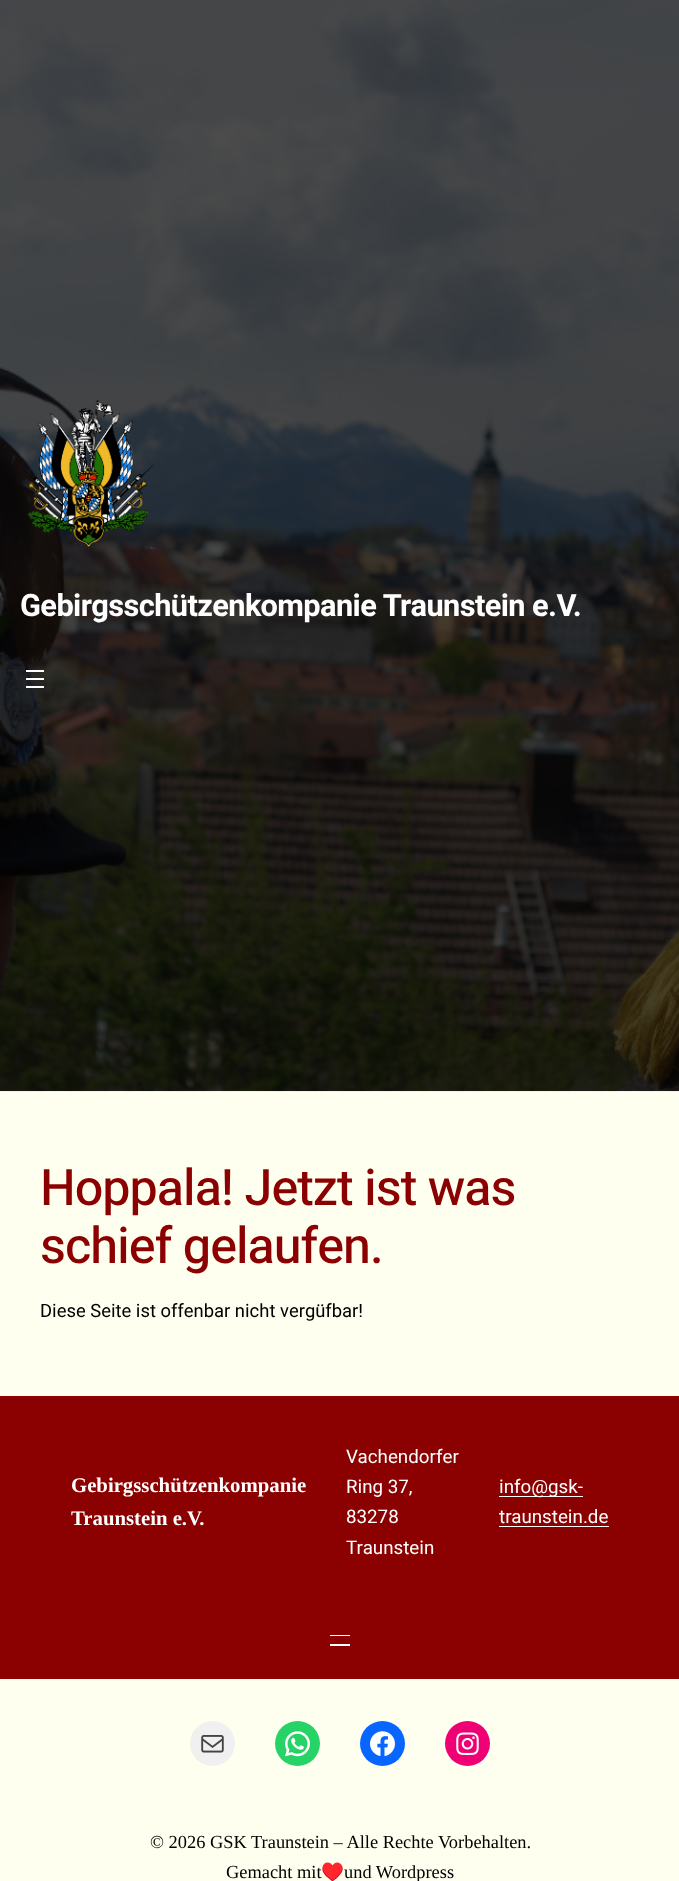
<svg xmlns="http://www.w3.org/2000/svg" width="679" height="1881">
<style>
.a{font:bold 30.75px Heebo;letter-spacing:-0.6px;fill:#fff}
.b{font:500 50.25px Heebo;letter-spacing:-1px;fill:#8b0000}
.c{font:18.4px Heebo;fill:#000}
.d{font:bold 20.75px Liberation Serif;fill:#fff}
.e{font:18.75px Heebo;fill:#fff}
.f{font:18.4px Liberation Serif;fill:#000}
.g{font:18.4px Noto Color Emoji;fill:#000}
</style>
<rect width="100%" height="100%" fill="#fffff0"/>
<image href="1.png" x="0" y="0" width="679" height="1092"/>
<image href="2.png" x="20" y="399" width="137" height="150"/>
<path fill="#fff" d="M26 670h18v2H26z"/>
<path fill="#fff" d="M26 678h18v2H26z"/>
<path fill="#fff" d="M26 686h18v2H26z"/>
<path fill="#8b0000" d="M0 1396h679v283H0z"/>
<path fill="#fff" d="M499 1496h84v1H499z"/>
<path fill="#fff" d="M499 1526h110v1H499z"/>
<path fill="#fff" d="M330 1635h20v1H330z"/>
<path fill="#fff" d="M330 1644h20v2H330z"/>
<circle fill="#f0f0f0" cx="212.5" cy="1743.5" r="22.5"/>
<image href="3.png" x="201" y="1735" width="23" height="18"/>
<circle fill="#25d366" cx="297.5" cy="1743.5" r="22.5"/>
<image href="4.png" x="285" y="1731" width="25" height="26"/>
<circle fill="#0866ff" cx="382.5" cy="1743.5" r="22.5"/>
<image href="5.png" x="370" y="1731" width="25" height="26"/>
<circle fill="#f00075" cx="467.5" cy="1743.5" r="22.5"/>
<image href="6.png" x="456" y="1732" width="23" height="23"/>
<text class="a" x="20" y="616">Gebirgsschützenkompanie Traunstein e.V.</text>
<text class="b" x="40" y="1205">Hoppala! Jetzt ist was</text>
<text class="b" x="40" y="1263">schief gelaufen.</text>
<text class="c" x="40" y="1317">Diese Seite ist offenbar nicht vergüfbar!</text>
<text class="d" x="71" y="1492">Gebirgsschützenkompanie</text>
<text class="d" x="71" y="1525">Traunstein e.V.</text>
<text class="e" x="346" y="1463">Vachendorfer</text>
<text class="e" x="346" y="1493">Ring 37,</text>
<text class="e" x="346" y="1523">83278</text>
<text class="e" x="346" y="1554">Traunstein</text>
<text class="e" x="499" y="1493">info@gsk-</text>
<text class="e" x="499" y="1523">traunstein.de</text>
<text class="f" x="150" y="1848">© 2026 GSK Traunstein – Alle Rechte Vorbehalten.</text>
<text class="f" x="226" y="1878">Gemacht mit</text>
<text class="g" x="321" y="1878">♥️</text>
<text class="f" x="344" y="1878">und Wordpress</text>
</svg>
